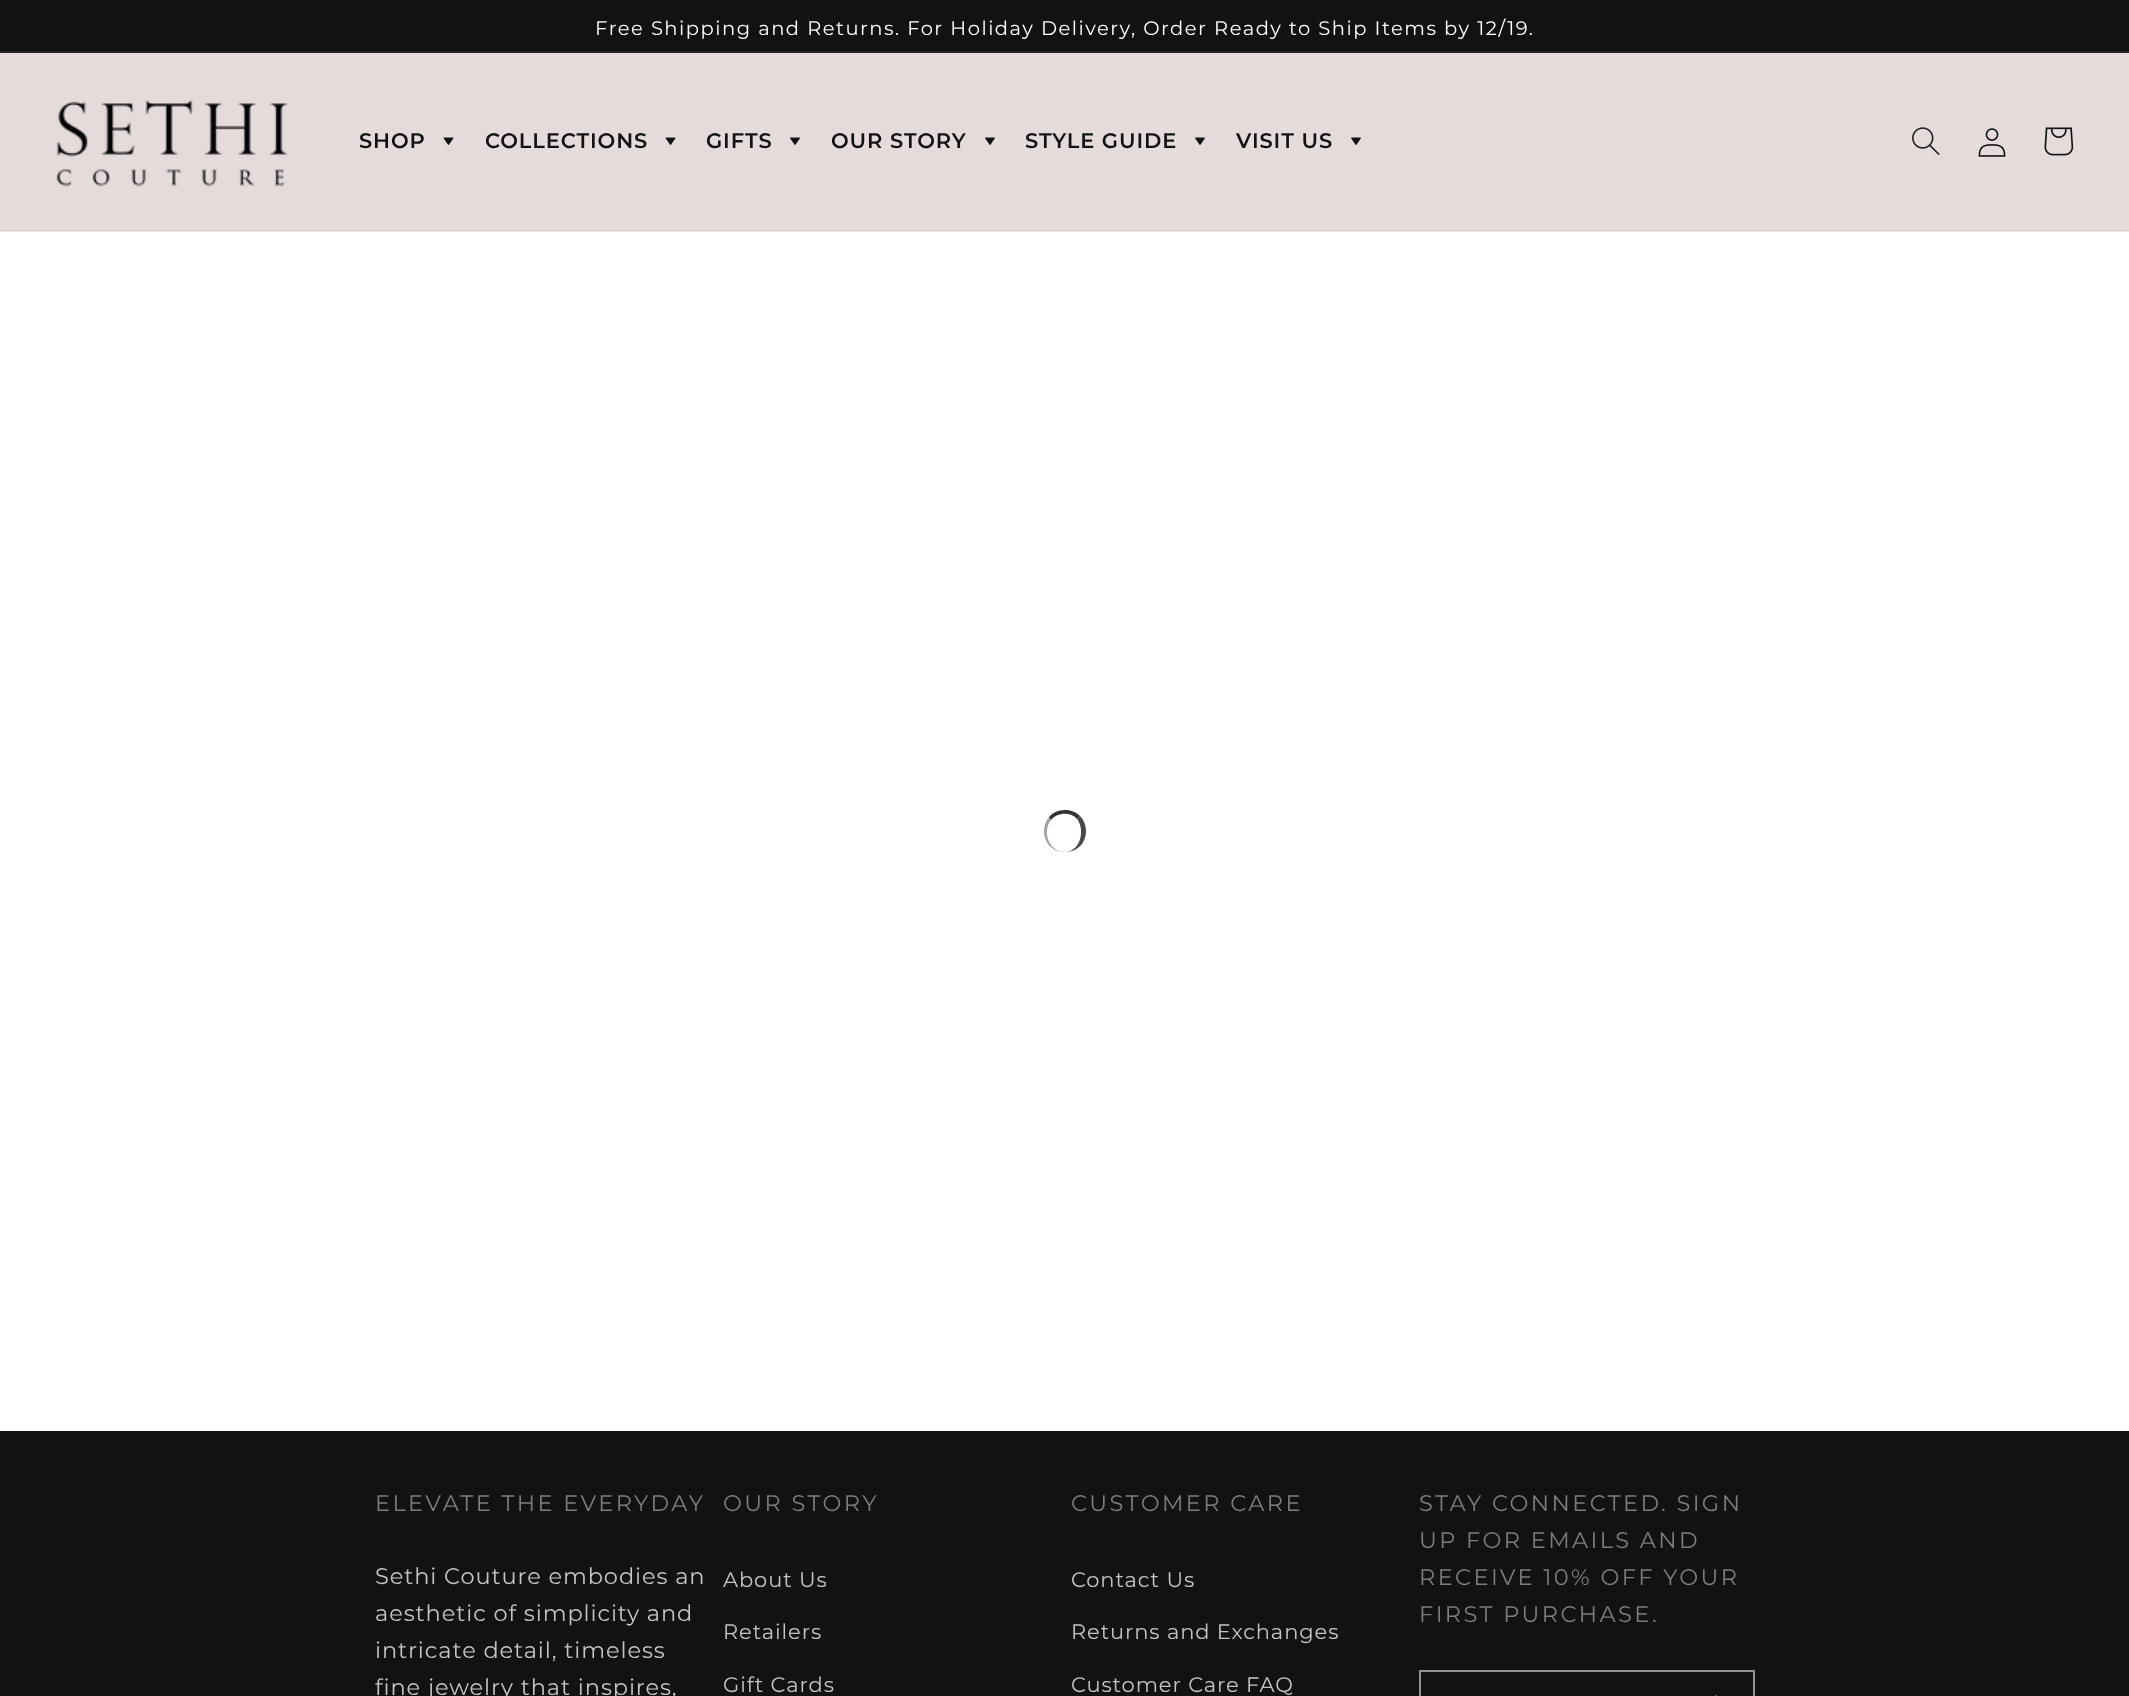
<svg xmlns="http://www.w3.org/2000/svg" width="2129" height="1696">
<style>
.a{font:19.5px Montserrat;letter-spacing:1.5px;fill:#fff}
.b{font:600 21px Montserrat;letter-spacing:0.9px;fill:#121212}
.c{font:22.5px Montserrat;letter-spacing:2.4px;fill:#7d7d7d}
.d{font:22.5px Montserrat;letter-spacing:0.9px;fill:#c4c4c4}
.e{font:21px Montserrat;letter-spacing:0.9px;fill:#c4c4c4}
</style>
<rect width="100%" height="100%" fill="#fff"/>
<path fill="#ececec" d="M0 231h2129v1H0z"/>
<path fill="#121212" d="M0 0h2129v51H0z"/>
<path fill="#252525" d="M0 51h2129v2H0z"/>
<path fill="#e5dbdb" d="M0 53h2129v177H0z"/>
<path fill="#d4cbcb" d="M0 230h2129v1H0z"/>
<image href="1.png" x="56" y="100" width="232" height="87"/>
<image href="2.png" x="443" y="137" width="11" height="8"/>
<image href="2.png" x="665" y="137" width="11" height="8"/>
<image href="3.png" x="790" y="137" width="10" height="8"/>
<image href="3.png" x="985" y="137" width="10" height="8"/>
<image href="3.png" x="1195" y="137" width="10" height="8"/>
<image href="3.png" x="1351" y="137" width="10" height="8"/>
<image href="4.png" x="1912" y="127" width="28" height="28"/>
<image href="5.png" x="1978" y="128" width="28" height="29"/>
<image href="6.png" x="2044" y="127" width="30" height="29"/>
<path fill="#333" d="M1065 810c-7.5 0-12.5 3-16 7l2 3c6-7.5 19.5-8.5 26-1l3-3c-3.5-3.5-8.5-6-15-6z"/>
<path fill="#333333e6" d="M1086 831c0 10.5-7 21-21 21c15.5 0 20.5-22.5 12-33l3-3c4 4 6 9.5 6 15z"/>
<path fill="#33333373" d="M1044 831c0 10.5 7 21 21 21c-16.5 0-23-21-14-32l-2-3c-3.5 4-5 9-5 14z"/>
<path fill="#121212" d="M0 1431h2129v265H0z"/>
<path fill="none" stroke="#949494" stroke-width="2" d="M1420 1671h334v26H1420z"/>
<image href="7.png" x="1714" y="1695" width="3" height="1"/>
<text class="a" x="595" y="35">Free Shipping and Returns. For Holiday Delivery, Order Ready to Ship Items by 12/19.</text>
<text class="b" x="359" y="148">SHOP</text>
<text class="b" x="485" y="148">COLLECTIONS</text>
<text class="b" x="706" y="148">GIFTS</text>
<text class="b" x="831" y="148">OUR STORY</text>
<text class="b" x="1025" y="148">STYLE GUIDE</text>
<text class="b" x="1236" y="148">VISIT US</text>
<text class="c" x="375" y="1511">ELEVATE THE EVERYDAY</text>
<text class="d" x="375" y="1584">Sethi Couture embodies an</text>
<text class="d" x="375" y="1621">aesthetic of simplicity and</text>
<text class="d" x="375" y="1658">intricate detail, timeless</text>
<text class="d" x="375" y="1695">fine jewelry that inspires,</text>
<text class="c" x="723" y="1511">OUR STORY</text>
<text class="e" x="723" y="1587">About Us</text>
<text class="e" x="723" y="1639">Retailers</text>
<text class="e" x="723" y="1692">Gift Cards</text>
<text class="c" x="1071" y="1511">CUSTOMER CARE</text>
<text class="e" x="1071" y="1587">Contact Us</text>
<text class="e" x="1071" y="1639">Returns and Exchanges</text>
<text class="e" x="1071" y="1692">Customer Care FAQ</text>
<text class="c" x="1419" y="1511">STAY CONNECTED. SIGN</text>
<text class="c" x="1419" y="1548">UP FOR EMAILS AND</text>
<text class="c" x="1419" y="1585">RECEIVE 10% OFF YOUR</text>
<text class="c" x="1419" y="1622">FIRST PURCHASE.</text>
</svg>
